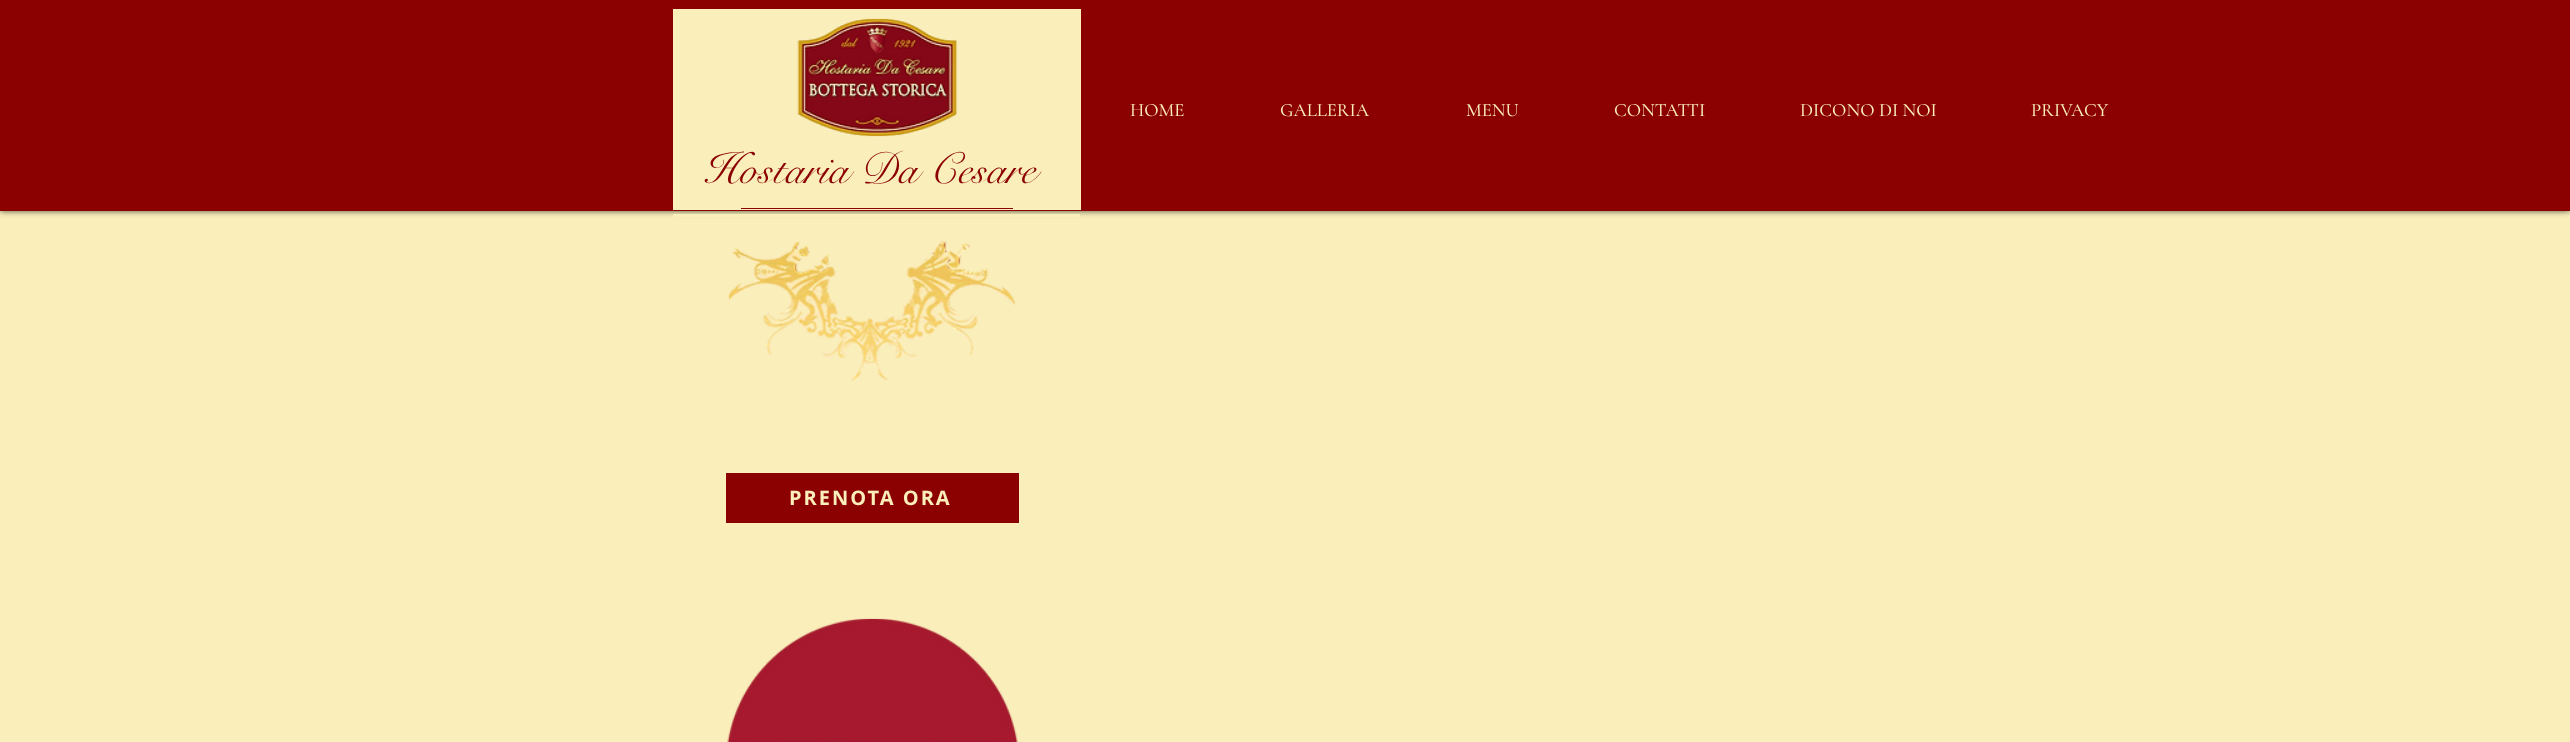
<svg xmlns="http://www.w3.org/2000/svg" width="2570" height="742">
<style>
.a{font:500 18.75px Cormorant Garamond;fill:#faefbb}
.b{font:43.75px 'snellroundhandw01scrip';fill:#8b0000}
.c{font:bold 20px Open Sans;letter-spacing:2px;fill:#faefbb}
</style>
<rect width="100%" height="100%" fill="#faefbb"/>
<path fill="#000000b3" filter="blur(3px)" d="M0 0h2570v211H0z"/>
<path fill="#8b0000" d="M0 0h2570v211H0z"/>
<path fill="#faefbb" d="M673 9h408v201H673z"/>
<image href="1.png" x="797" y="18" width="161" height="119"/>
<path fill="#8b0000" d="M741 208h272v1H741z"/>
<path fill="#faefbb" d="M673 214h407v3H673z"/>
<image href="2.png" x="728" y="241" width="287" height="140"/>
<path fill="#8b0000" d="M726 473h293v50H726z"/>
<image href="3.png" x="727" y="618" width="291" height="124"/>
<text class="a" x="1130" y="116">HOME</text>
<text class="a" x="1280" y="116">GALLERIA</text>
<text class="a" x="1466" y="116">MENU</text>
<text class="a" x="1614" y="116">CONTATTI</text>
<text class="a" x="1800" y="116">DICONO DI NOI</text>
<text class="a" x="2031" y="116">PRIVACY</text>
<text class="b" x="703" y="183">Hostaria Da Cesare</text>
<text class="c" x="789" y="505">PRENOTA ORA</text>
</svg>
